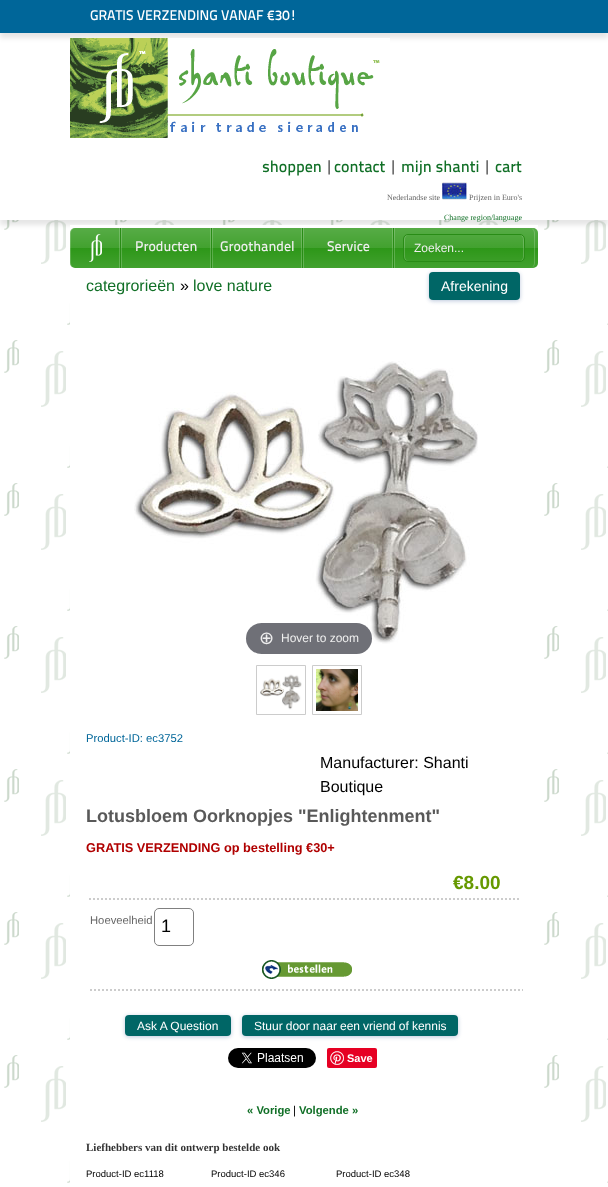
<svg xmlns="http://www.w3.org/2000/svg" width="608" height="1187">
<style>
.a{font:500 14px 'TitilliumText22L';fill:#fff}
.b{font:500 16px 'TitilliumText22L';fill:#106f26}
.c{font:500 16px 'TitilliumText22L';fill:#666}
.d{font:8px Liberation Serif;fill:#666}
.e{font:8px Liberation Serif;fill:#106f26}
.f{font:500 14px 'TitilliumText22L';fill:#eee}
.g{font:12px Liberation Sans;fill:#eee}
.h{font:16px Liberation Sans;fill:#106f26}
.i{font:16px Liberation Sans;fill:#000}
.j{font:14px Liberation Sans;fill:#fff}
.k{font:18px DejaVu Sans;fill:#eee}
.l{font:11.25px Liberation Sans;fill:#069}
.m{font:bold 18px Liberation Sans;fill:#595959}
.n{font:bold 12.75px Liberation Sans;fill:#b00000}
.o{font:bold 19px Liberation Sans;fill:#690}
.p{font:11.25px Liberation Sans;fill:#666}
.q{font:18px Liberation Sans;fill:#000}
.r{font:12px Liberation Sans;fill:#fff}
.s{font:bold 11px Liberation Sans;fill:#fff}
.t{font:bold 11.25px Liberation Sans;fill:#106f26}
.u{font:11.25px Liberation Sans;fill:#000}
.v{font:bold 11px Liberation Serif;fill:#333}
.w{font:9.5px Liberation Sans;fill:#000}
</style>
<defs>
<linearGradient id="g1" gradientUnits="userSpaceOnUse" x1="304" y1="228" x2="304" y2="268"><stop offset="0" stop-color="#fff" stop-opacity="0.2"/><stop offset="0.5" stop-color="#fff" stop-opacity="0.1"/><stop offset="0.5" stop-color="#fff" stop-opacity="0"/><stop offset="1" stop-color="#fff" stop-opacity="0.1"/></linearGradient>
</defs>
<rect width="100%" height="100%" fill="#fff"/>
<image href="1.png" x="4" y="220" width="604" height="963"/>
<path fill="#0000001a" filter="blur(2.5px)" d="M0 5h608v220H0z"/>
<path fill="#fff" d="M0 33h608v187H0z"/>
<path fill="#0000001a" filter="blur(2.5px)" d="M0 5h608v33H0z"/>
<path fill="#069" d="M0 0h608v33H0z"/>
<image href="2.png" x="70" y="38" width="320" height="100"/>
<image href="3.png" x="442" y="182" width="25" height="18"/>
<path fill="#fff" d="M70 225h468v958H70z"/>
<rect fill="#bcc8dc" filter="blur(2px)" x="429" y="273" width="91" height="28" rx="4"/>
<rect fill="#2d9718" x="70" y="228" width="468" height="40" rx="5"/>
<rect fill="url(#g1)" x="70" y="228" width="468" height="40" rx="5"/>
<path fill="#ffffff33" d="M75 228c-3 0-5 2-5 5v30c0 3 2 5 5 5h1c-3 0-5-2-5-5v-30c0-3 2-5 5-5z"/>
<path fill="#ffffff33" d="M119 228h1v40H119z"/>
<path fill="#298c16" d="M120 228h1v40H120z"/>
<image href="4.png" x="89" y="234" width="13" height="28"/>
<path fill="#ffffff33" d="M121 228h1v40H121z"/>
<path fill="#ffffff33" d="M210 228h1v40H210z"/>
<path fill="#298c16" d="M211 228h1v40H211z"/>
<path fill="#ffffff33" d="M212 228h1v40H212z"/>
<path fill="#ffffff33" d="M301 228h1v40H301z"/>
<path fill="#298c16" d="M302 228h1v40H302z"/>
<path fill="#ffffff33" d="M303 228h1v40H303z"/>
<path fill="#ffffff33" d="M392 228h1v40H392z"/>
<path fill="#298c16" d="M393 228h1v40H393z"/>
<path fill="#ffffff33" d="M394 228h1v40H394z"/>
<path fill="#ffffff33" d="M529 268c7 0 6-5 6-10v-20c0-5 1-10-6-10c3 0 5 2 5 5v30c0 3-2 5-5 5z"/>
<path fill="#ffffff33" d="M408 235c-2 0-4 2-4 4v18c0 2 2 4 4 4h1c-2 0-4-2-4-4v-18c0-2 2-4 4-4z"/>
<path fill="#ffffff33" d="M519 261c5 0 5-3 5-7v-12c0-4 0-7-5-7c2 0 4 2 4 4v18c0 2-2 4-4 4z"/>
<rect fill="none" stroke="#298c16" x="403.5" y="234.5" width="121" height="27" rx="4.5"/>
<rect fill="#066" x="429" y="272" width="91" height="28" rx="4"/>
<image href="5.png" x="134" y="361" width="344" height="283"/>
<rect fill="#6f7077" x="246" y="623" width="126" height="31" rx="15.5"/>
<path fill="none" stroke="#ccc" d="M256.5 665.5h49v49H256.5z"/>
<image href="6.png" x="260" y="674" width="42" height="36"/>
<path fill="none" stroke="#ccc" d="M312.5 665.5h49v49H312.5z"/>
<image href="7.png" x="316" y="669" width="42" height="42"/>
<path fill="none" stroke="#ccc" stroke-width="2" stroke-dasharray="2 2" d="M89 899h431"/>
<rect fill="none" stroke="#808080" x="154.5" y="908.5" width="39" height="37" rx="4.5"/>
<path fill="none" stroke="#ccc" stroke-width="2" stroke-dasharray="2 2" d="M90 990h433"/>
<image href="8.png" x="262" y="960" width="90" height="19"/>
<rect fill="#bcc8dc" filter="blur(2px)" x="125" y="1016" width="106" height="21" rx="4"/>
<rect fill="#066" x="125" y="1015" width="106" height="21" rx="4"/>
<rect fill="#bcc8dc" filter="blur(2px)" x="242" y="1016" width="216" height="21" rx="4"/>
<rect fill="#066" x="242" y="1015" width="216" height="21" rx="4"/>
<image href="9.png" x="228" y="1048" width="88" height="20"/>
<rect fill="#e60023" x="327" y="1048" width="50" height="20" rx="2"/>
<image href="10.png" x="330" y="1051" width="14" height="14"/>
<text class="a" x="90" y="20">GRATIS VERZENDING VANAF €30!</text>
<text class="b" x="262" y="172">shoppen</text>
<text class="c" x="325" y="172">|</text>
<text class="b" x="334" y="172">contact</text>
<text class="c" x="389" y="172">|</text>
<text class="b" x="401" y="172">mijn shanti</text>
<text class="c" x="483" y="172">|</text>
<text class="b" x="495" y="172">cart</text>
<text class="d" x="387" y="200">Nederlandse site</text>
<text class="d" x="469" y="200">Prijzen in Euro's</text>
<text class="e" x="444" y="220">Change region/language</text>
<text class="f" x="135" y="251">Producten</text>
<text class="f" x="220" y="251">Groothandel</text>
<text class="f" x="327" y="251">Service</text>
<text class="g" x="414" y="252">Zoeken...</text>
<text class="h" x="86" y="291">categrorieën</text>
<text class="i" x="180" y="291">»</text>
<text class="h" x="193" y="291">love nature</text>
<text class="j" x="441" y="291">Afrekening</text>
<text class="k" x="259" y="644">⊕</text>
<text class="g" x="281" y="642">Hover to zoom</text>
<text class="l" x="86" y="742">Product-ID: ec3752</text>
<text class="i" x="320" y="768">Manufacturer: Shanti</text>
<text class="i" x="320" y="792">Boutique</text>
<text class="m" x="86" y="822">Lotusbloem Oorknopjes "Enlightenment"</text>
<text class="n" x="86" y="852">GRATIS VERZENDING op bestelling €30+</text>
<text class="o" x="453" y="889">€8.00</text>
<text class="p" x="90" y="924">Hoeveelheid</text>
<text class="q" x="161" y="932">1</text>
<text class="r" x="137" y="1030">Ask A Question</text>
<text class="r" x="254" y="1030" word-spacing="-0.25">Stuur door naar een vriend of kennis</text>
<text class="s" x="347" y="1062">Save</text>
<text class="t" x="247" y="1114">« Vorige</text>
<text class="u" x="293" y="1114">|</text>
<text class="t" x="299" y="1114">Volgende »</text>
<text class="v" x="86" y="1151">Liefhebbers van dit ontwerp bestelde ook</text>
<text class="w" x="86" y="1177">Product-ID ec1118</text>
<text class="w" x="211" y="1177">Product-ID ec346</text>
<text class="w" x="336" y="1177">Product-ID ec348</text>
</svg>
